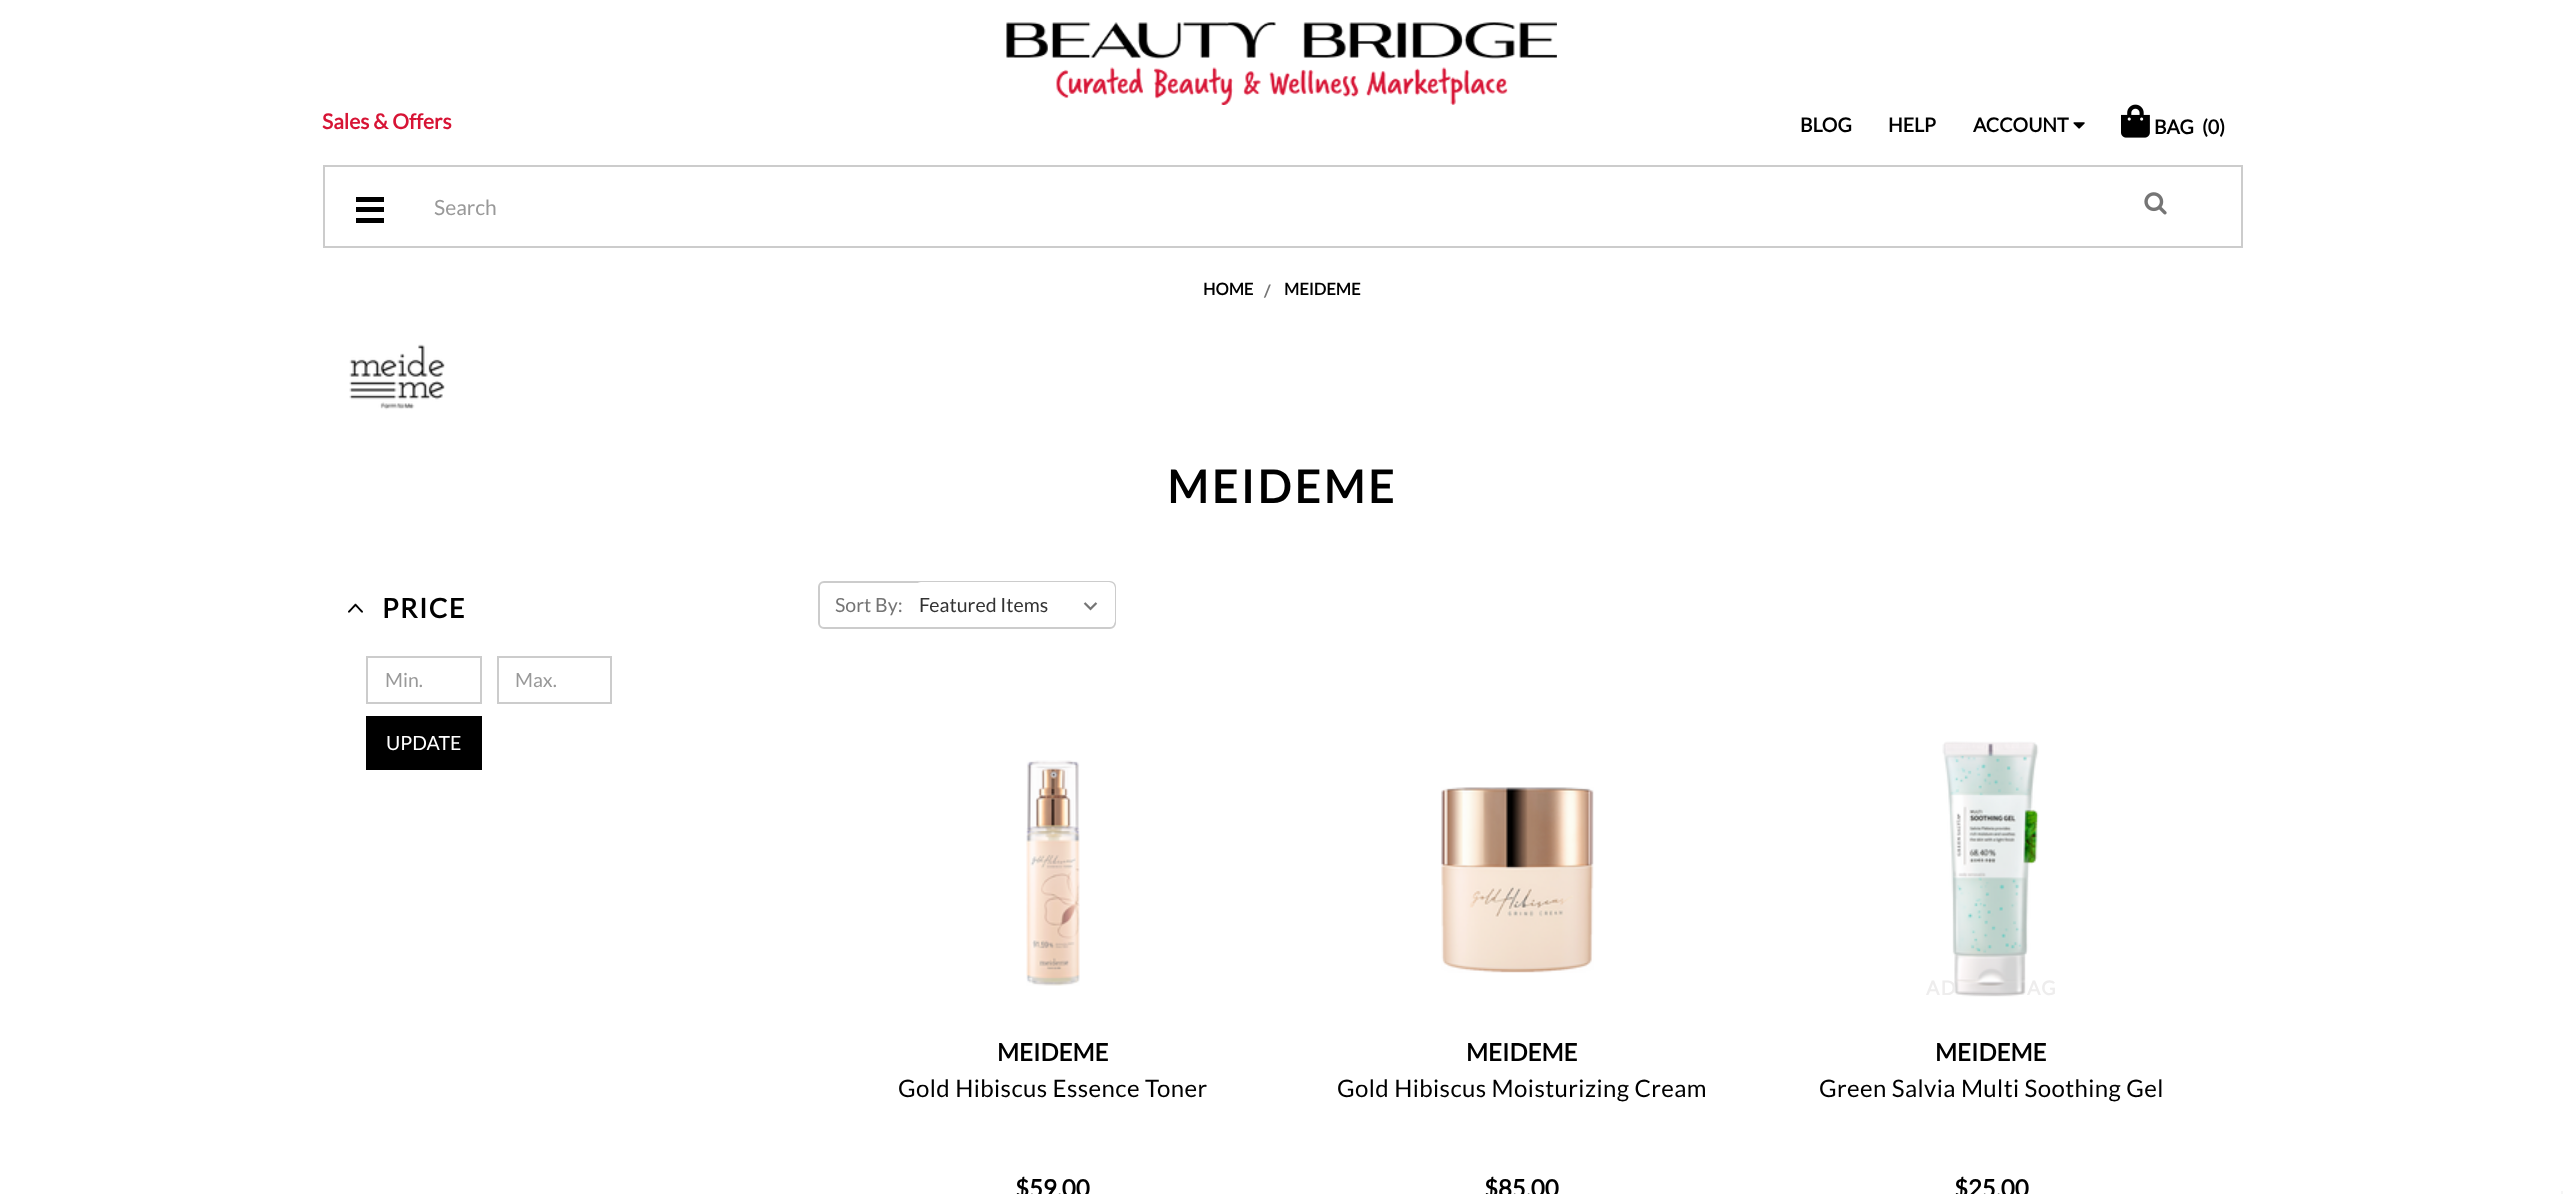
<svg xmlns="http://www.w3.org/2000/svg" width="2563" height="1194">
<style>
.a{font:bold 21px Lato;fill:#d71435}
.b{font:bold 19.5px Lato;fill:#000}
.c{font:21px Lato;fill:#999}
.d{font:bold 16.5px Lato;fill:#000}
.e{font:bold 16.5px Lato;fill:#757575}
.f{font:bold 45px Lato;letter-spacing:3px;fill:#000}
.g{font:bold 27px Lato;letter-spacing:1.5px;fill:#000}
.h{font:19.5px Lato;fill:#999}
.i{font:19.5px Lato;fill:#fff}
.j{font:19.5px Lato;fill:#757575}
.k{font:19.5px Lato;fill:#333}
.l{font:bold 24px Lato;fill:#000}
.m{font:24px Lato;letter-spacing:0.4px;fill:#000}
.n{font:bold 19.5px Lato;letter-spacing:1.5px;fill:#eeeded}
</style>
<defs>
<clipPath id="clip1"><rect x="819" y="582" width="296" height="45" rx="5"/></clipPath>
</defs>
<rect width="100%" height="100%" fill="#fff"/>
<image href="1.png" x="1006" y="22" width="551" height="83"/>
<image href="2.png" x="2073" y="122" width="12" height="7"/>
<image href="3.png" x="2121" y="104" width="29" height="34"/>
<path fill="none" stroke="#ccc" stroke-width="2" d="M324 166h1918v81H324z"/>
<path fill="#000" d="M356 207h28v5H356z"/>
<path fill="#000" d="M356 197h28v5H356z"/>
<path fill="#000" d="M356 218h28v5H356z"/>
<image href="4.png" x="2144" y="192" width="23" height="23"/>
<image href="5.png" x="349" y="344" width="96" height="66"/>
<image href="6.png" x="348" y="603" width="15" height="10"/>
<path fill="none" stroke="#ccc" stroke-width="2" d="M367 657h114v46H367z"/>
<path fill="none" stroke="#ccc" stroke-width="2" d="M498 657h113v46H498z"/>
<path fill="#000" d="M366 716h116v54H366z"/>
<rect fill="none" stroke="#ccc" stroke-width="2" x="819" y="582" width="296" height="46" rx="5"/>
<g clip-path="url(#clip1)">
<rect fill="#fff" x="915" y="582" width="200" height="45" rx="6"/>
</g>
<image href="7.png" x="1083" y="602" width="15" height="9"/>
<image href="8.png" x="1026" y="760" width="54" height="226"/>
<image href="9.png" x="1441" y="787" width="153" height="186"/>
<image href="10.png" x="1942" y="741" width="97" height="256"/>
<path fill="#f5f5f5" d="M2561 1191h2v3H2561z"/>
<text class="a" x="322" y="129">Sales &amp; Offers</text>
<text class="b" x="1800" y="132">BLOG</text>
<text class="b" x="1888" y="132">HELP</text>
<text class="b" x="1973" y="132">ACCOUNT</text>
<text class="b" x="2154" y="134">BAG</text>
<text class="b" x="2202" y="134">(0)</text>
<text class="c" x="434" y="215">Search</text>
<text class="d" x="1203" y="295">HOME</text>
<text class="e" x="1264" y="297">/</text>
<text class="d" x="1284" y="295">MEIDEME</text>
<text class="f" x="1167" y="503">MEIDEME</text>
<text class="g" x="382" y="618">PRICE</text>
<text class="h" x="385" y="687">Min.</text>
<text class="h" x="515" y="687">Max.</text>
<text class="i" x="386" y="750">UPDATE</text>
<text class="j" x="835" y="612">Sort By:</text>
<text class="k" x="919" y="612">Featured Items</text>
<text class="l" x="997" y="1061">MEIDEME</text>
<text class="m" x="898" y="1097">Gold Hibiscus Essence Toner</text>
<text class="l" x="1015" y="1197">$59.00</text>
<text class="l" x="1466" y="1061">MEIDEME</text>
<text class="m" x="1337" y="1097">Gold Hibiscus Moisturizing Cream</text>
<text class="l" x="1484" y="1197">$85.00</text>
<text class="n" x="1926" y="995">AD</text>
<text class="n" x="2027" y="995">AG</text>
<text class="l" x="1935" y="1061">MEIDEME</text>
<text class="m" x="1819" y="1097">Green Salvia Multi Soothing Gel</text>
<text class="l" x="1954" y="1197">$25.00</text>
</svg>
